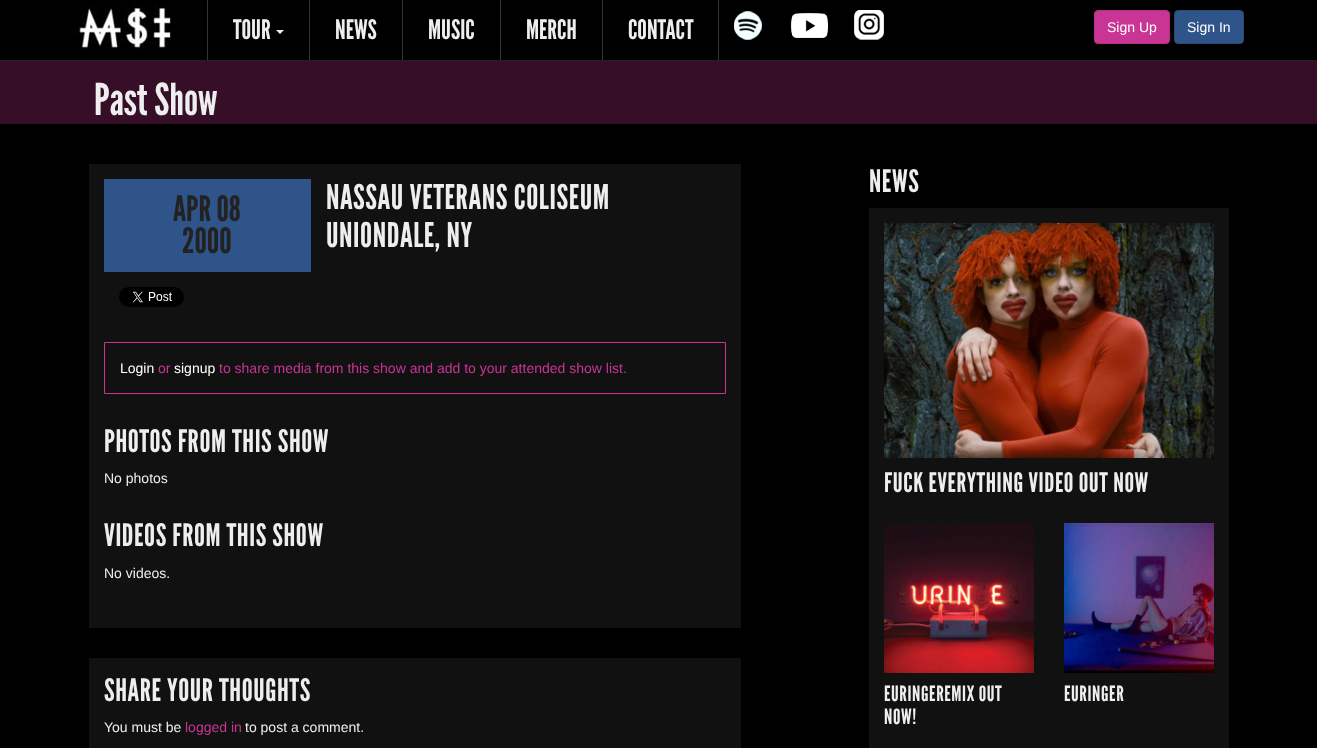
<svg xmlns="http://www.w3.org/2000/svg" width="1317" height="748">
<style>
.a{font:27px League Gothic;fill:#eee}
.b{font:14px Liberation Sans;fill:#fff}
.c{font:44px League Gothic;fill:#eee}
.d{font:35px League Gothic;fill:#222}
.e{font:34px League Gothic;letter-spacing:0.6px;fill:#eee}
.f{font:14px Liberation Sans;fill:#c93595}
.g{font:31px League Gothic;letter-spacing:0.6px;fill:#eee}
.h{font:14px Liberation Sans;fill:#eee}
.i{font:27px League Gothic;letter-spacing:0.6px;fill:#eee}
.j{font:21px League Gothic;letter-spacing:0.6px;fill:#eee}
</style>
<rect width="100%" height="100%" fill="#000"/>
<path fill="#222" d="M0 60h1317v1H0z"/>
<image href="1.png" x="75" y="3" width="102" height="48"/>
<path fill="#333" d="M207 0h1v60H207z"/>
<path fill="#333" d="M309 0h1v60H309z"/>
<path fill="#eee" d="M276 30h8l-4 4z"/>
<path fill="#333" d="M402 0h1v60H402z"/>
<path fill="#333" d="M500 0h1v60H500z"/>
<path fill="#333" d="M602 0h1v60H602z"/>
<path fill="#333" d="M718 0h1v60H718z"/>
<image href="2.png" x="734" y="11" width="28" height="29"/>
<image href="3.png" x="791" y="13" width="37" height="25"/>
<image href="4.png" x="854" y="10" width="30" height="30"/>
<rect fill="#c93595" stroke="#b53086" x="1094.5" y="10.5" width="75" height="33" rx="3.5"/>
<rect fill="#2f5489" stroke="#284876" x="1174.5" y="10.5" width="69" height="33" rx="3.5"/>
<path fill="#360e28" d="M0 61h1317v63H0z"/>
<path fill="#111" d="M89 164h652v464H89z"/>
<path fill="#2f5489" d="M104 179h207v93H104z"/>
<image href="5.png" x="119" y="287" width="65" height="20"/>
<path fill="none" stroke="#c93595" d="M104.5 342.5h621v51H104.5z"/>
<path fill="#111" d="M89 658h652v90H89z"/>
<path fill="#111" d="M869 208h360v540H869z"/>
<image href="6.png" x="884" y="223" width="330" height="235"/>
<image href="7.png" x="884" y="523" width="150" height="150"/>
<image href="8.png" x="1064" y="523" width="150" height="150"/>
<text class="a" x="233" y="39">TOUR</text>
<text class="a" x="335" y="39">NEWS</text>
<text class="a" x="428" y="39">MUSIC</text>
<text class="a" x="526" y="39">MERCH</text>
<text class="a" x="628" y="39">CONTACT</text>
<text class="b" x="1107" y="32">Sign Up</text>
<text class="b" x="1187" y="32">Sign In</text>
<text class="c" x="94" y="115">Past Show</text>
<text class="d" x="173" y="221">APR 08</text>
<text class="d" x="182" y="253">2000</text>
<text class="e" x="326" y="209">NASSAU VETERANS COLISEUM</text>
<text class="e" x="326" y="247">UNIONDALE, NY</text>
<text class="b" x="120" y="373">Login</text>
<text class="f" x="158" y="373">or</text>
<text class="b" x="174" y="373">signup</text>
<text class="f" x="219" y="373">to share media from this show and add to your attended show list.</text>
<text class="g" x="104" y="452">PHOTOS FROM THIS SHOW</text>
<text class="h" x="104" y="483">No photos</text>
<text class="g" x="104" y="546">VIDEOS FROM THIS SHOW</text>
<text class="h" x="104" y="578">No videos.</text>
<text class="g" x="104" y="701">SHARE YOUR THOUGHTS</text>
<text class="h" x="104" y="732">You must be</text>
<text class="f" x="185" y="732">logged in</text>
<text class="h" x="245" y="732">to post a comment.</text>
<text class="g" x="869" y="192">NEWS</text>
<text class="i" x="884" y="492">FUCK EVERYTHING VIDEO OUT NOW</text>
<text class="j" x="884" y="701">EURINGEREMIX OUT</text>
<text class="j" x="884" y="724">NOW!</text>
<text class="j" x="1064" y="701">EURINGER</text>
</svg>
